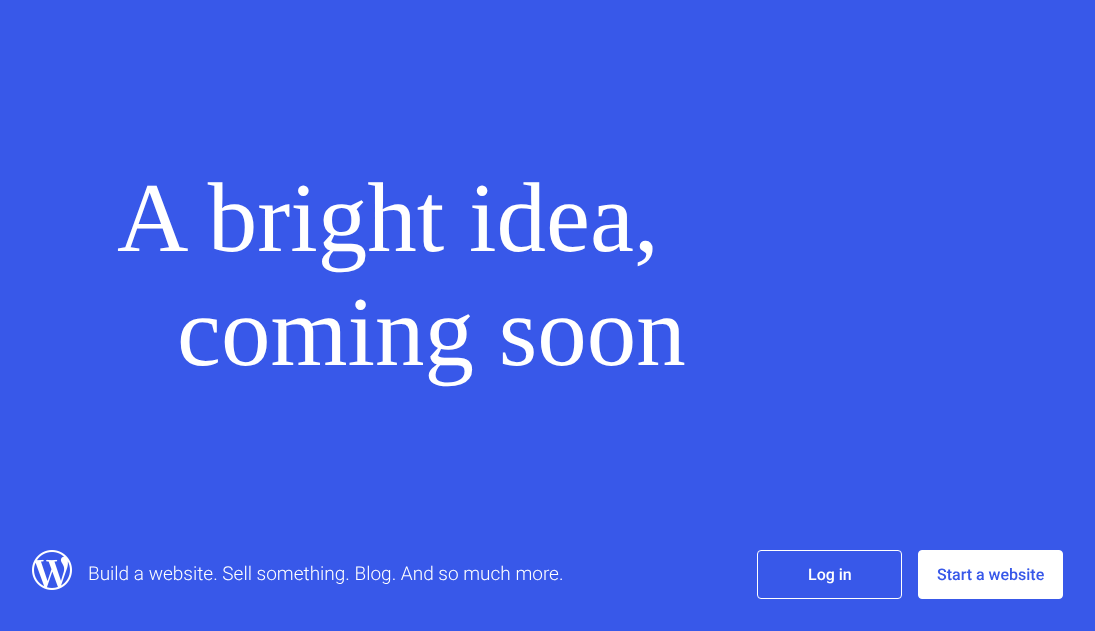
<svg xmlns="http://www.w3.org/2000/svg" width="1095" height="631">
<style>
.a{font:99px Liberation Serif;fill:#fff}
.b{font:300 19px Roboto;fill:#fff}
.c{font:500 16px Roboto;fill:#fff}
.d{font:500 16px Roboto;fill:#3858e9}
</style>
<rect width="100%" height="100%" fill="#3858e9"/>
<image href="1.png" x="32" y="550" width="40" height="40"/>
<rect fill="none" stroke="#fff" x="757.5" y="550.5" width="144" height="48" rx="3.5"/>
<rect fill="#fff" stroke="#fff" x="918.5" y="550.5" width="144" height="48" rx="3.5"/>
<text class="a" x="117" y="251">A bright idea,</text>
<text class="a" x="177" y="365">coming soon</text>
<text class="b" x="88" y="580">Build a website. Sell something. Blog. And so much more.</text>
<text class="c" x="808" y="580">Log in</text>
<text class="d" x="937" y="580">Start a website</text>
</svg>
